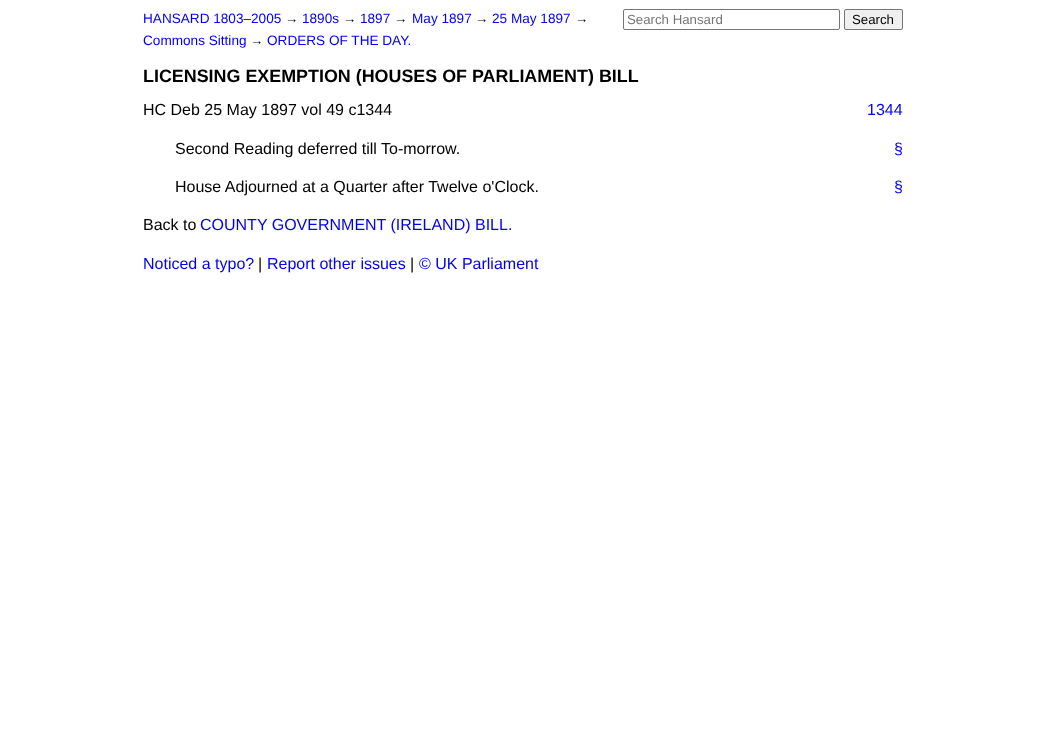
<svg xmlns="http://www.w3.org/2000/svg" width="1045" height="740">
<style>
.a{font:13.6px Liberation Sans;fill:#00e}
.b{font:13.6px Liberation Sans;fill:#000}
.c{font:13.25px Liberation Sans;fill:#757575}
.d{font:13.25px Liberation Sans;fill:#000}
.e{font:bold 17.9px Liberation Sans;fill:#000}
.f{font:16px Liberation Sans;fill:#000}
.g{font:16px Liberation Sans;fill:#00e}
</style>
<rect width="100%" height="100%" fill="#fff"/>
<rect fill="none" stroke="#767676" x="623.5" y="9.5" width="216" height="20" rx="1.5"/>
<rect fill="#efefef" stroke="#767676" x="844.5" y="9.5" width="58" height="20" rx="1.5"/>
<text class="a" x="143" y="23">HANSARD 1803–2005</text>
<text class="b" x="285" y="23">→</text>
<text class="a" x="302" y="23">1890s</text>
<text class="b" x="343" y="23">→</text>
<text class="a" x="360" y="23">1897</text>
<text class="b" x="394" y="23">→</text>
<text class="a" x="412" y="23">May 1897</text>
<text class="b" x="475" y="23">→</text>
<text class="a" x="492" y="23">25 May 1897</text>
<text class="b" x="575" y="23">→</text>
<text class="a" x="143" y="45">Commons Sitting</text>
<text class="b" x="250" y="45">→</text>
<text class="a" x="267" y="45">ORDERS OF THE DAY.</text>
<text class="c" x="627" y="24">Search Hansard</text>
<text class="d" x="852" y="24">Search</text>
<text class="e" x="143" y="82">LICENSING EXEMPTION (HOUSES OF PARLIAMENT) BILL</text>
<text class="f" x="143" y="115">HC Deb 25 May 1897 vol 49 c1344</text>
<text class="g" x="867" y="115">1344</text>
<text class="f" x="175" y="154">Second Reading deferred till To-morrow.</text>
<text class="g" x="894" y="154">§</text>
<text class="f" x="175" y="192">House Adjourned at a Quarter after Twelve o'Clock.</text>
<text class="g" x="894" y="192">§</text>
<text class="f" x="143" y="230">Back to</text>
<text class="g" x="200" y="230">COUNTY GOVERNMENT (IRELAND) BILL.</text>
<text class="g" x="143" y="269">Noticed a typo?</text>
<text class="f" x="258" y="269">|</text>
<text class="g" x="267" y="269">Report other issues</text>
<text class="f" x="410" y="269">|</text>
<text class="g" x="419" y="269">© UK Parliament</text>
</svg>
